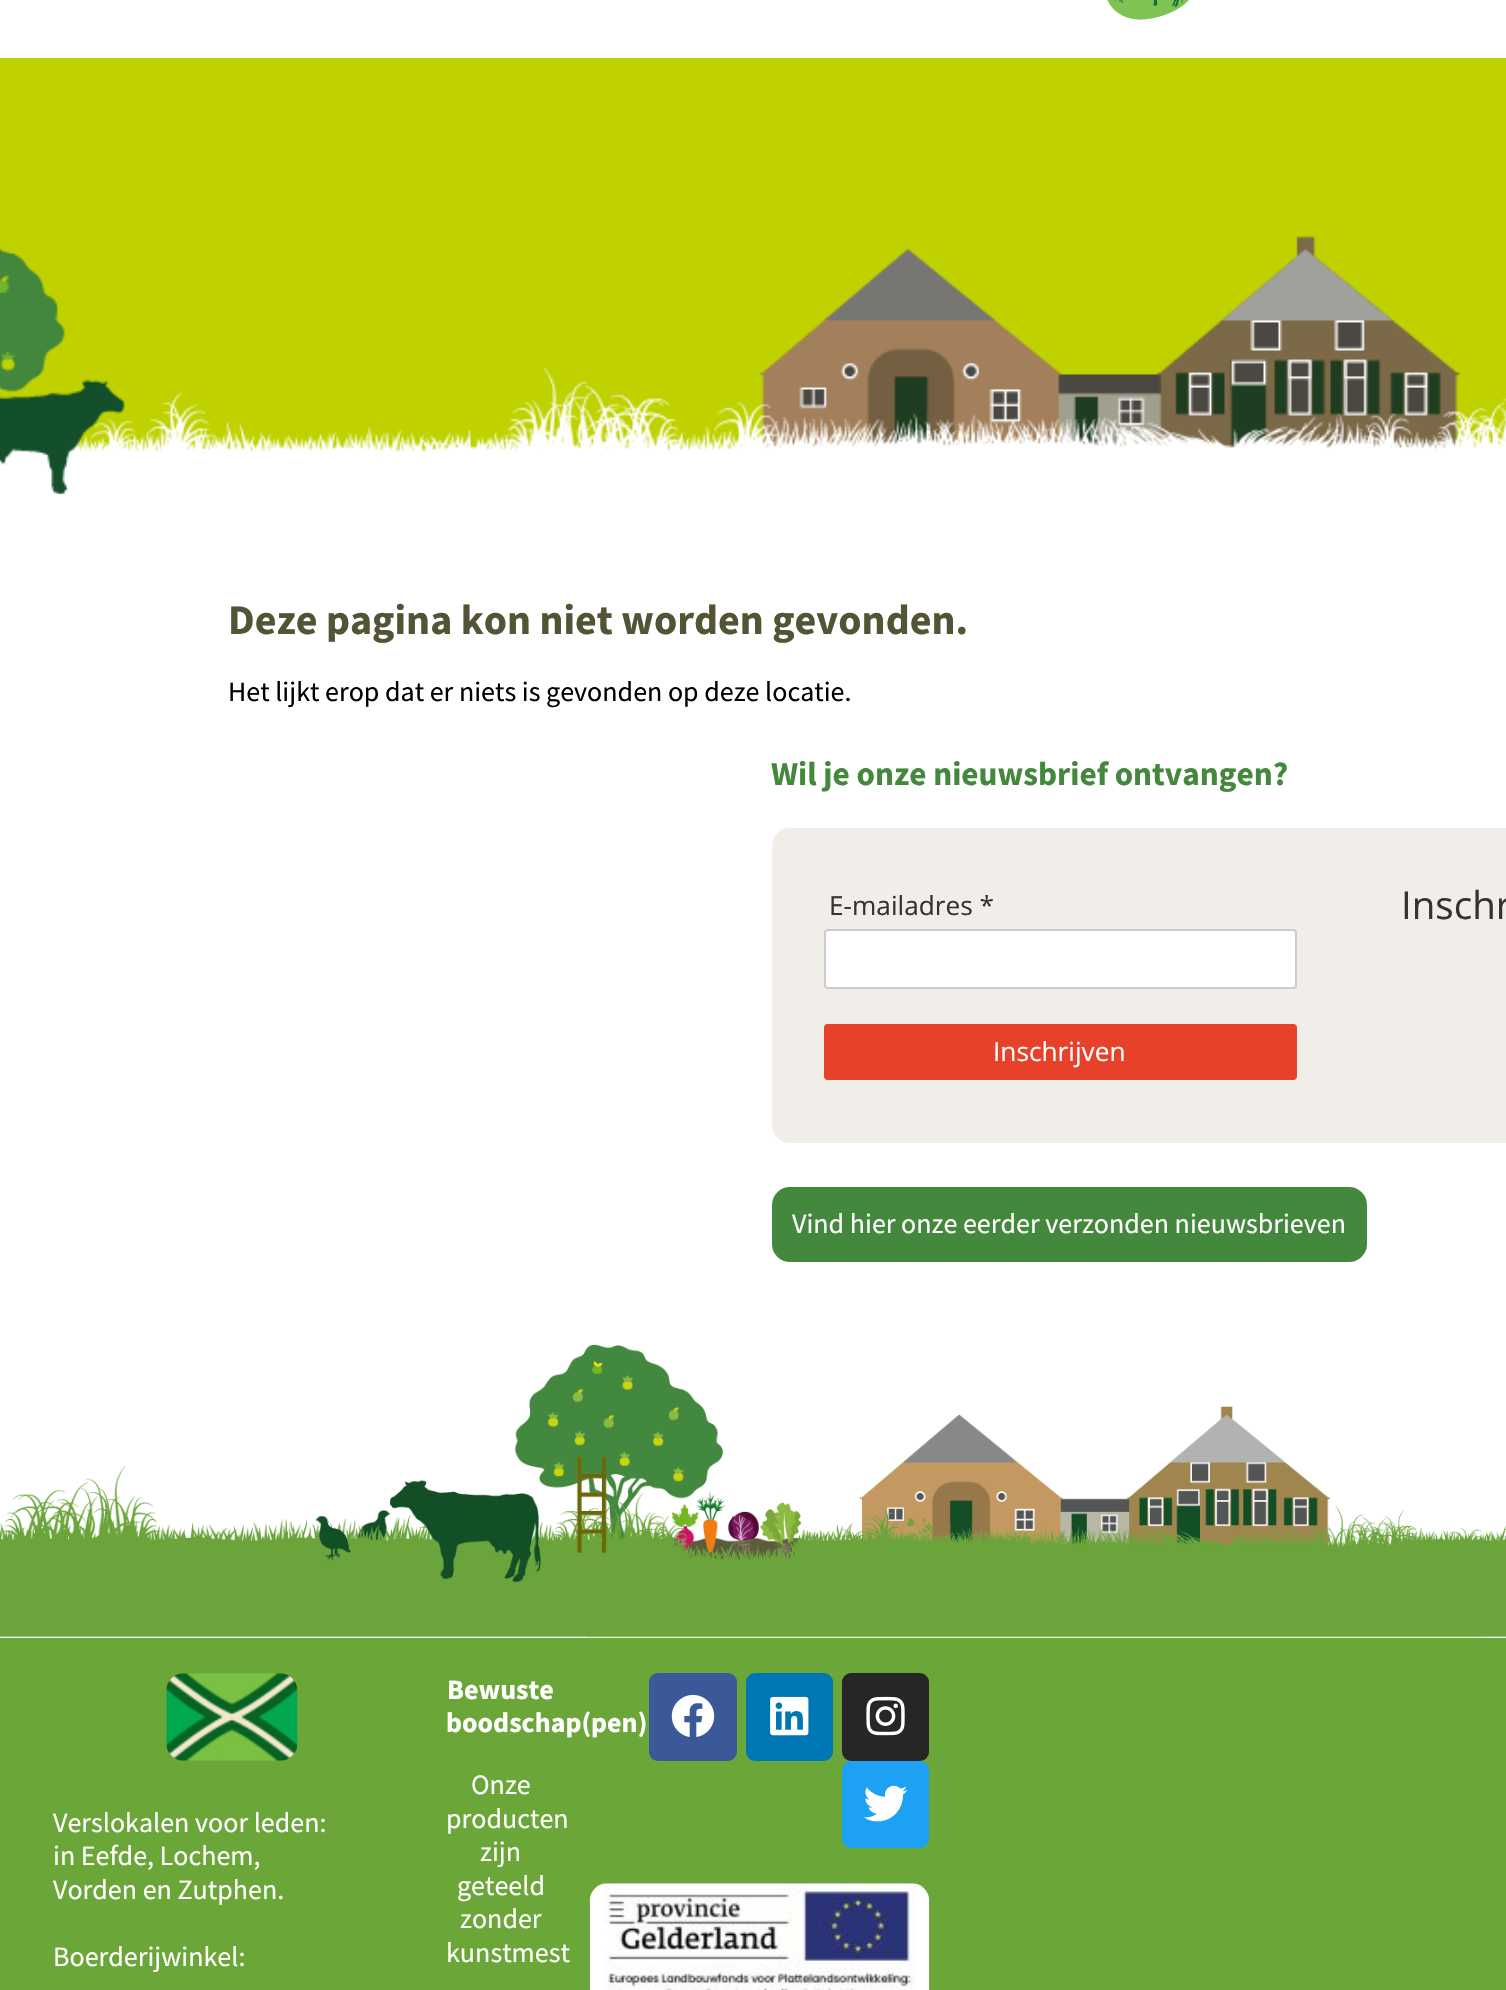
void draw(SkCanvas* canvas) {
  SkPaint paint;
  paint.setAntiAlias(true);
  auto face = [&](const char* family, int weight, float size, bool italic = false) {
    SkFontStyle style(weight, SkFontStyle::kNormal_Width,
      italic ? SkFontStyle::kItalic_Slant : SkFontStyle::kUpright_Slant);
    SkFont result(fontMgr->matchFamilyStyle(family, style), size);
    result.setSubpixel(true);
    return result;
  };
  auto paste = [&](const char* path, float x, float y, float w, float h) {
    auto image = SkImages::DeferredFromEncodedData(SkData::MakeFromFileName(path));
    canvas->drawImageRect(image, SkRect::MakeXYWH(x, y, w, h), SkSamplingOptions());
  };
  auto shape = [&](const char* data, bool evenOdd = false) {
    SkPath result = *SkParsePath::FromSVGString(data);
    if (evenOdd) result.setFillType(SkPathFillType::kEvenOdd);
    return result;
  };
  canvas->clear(0xffffffff);
  paste("img/1.png", 1107, 0, 82, 20);
  paste("img/2.png", 0, 58, 1506, 437);
  paint.setColor(0xfff1eee9);
  canvas->drawPath(shape("M790 828H1349V1143H790C780 1143 772 1135 772 1125V846C772 836 780 828 790 828Z"), paint);
  paint.setColor(0xffffffff);
  canvas->drawRoundRect(SkRect::MakeXYWH(825, 930, 471, 58), 3, 3, paint);
  paint.setStroke(true);
  paint.setStrokeWidth(2);
  paint.setColor(0xffcccccc);
  canvas->drawRoundRect(SkRect::MakeXYWH(825, 930, 471, 58), 3, 3, paint);
  paint.setStroke(false);
  paint.setColor(0xffe8412a);
  canvas->drawRoundRect(SkRect::MakeXYWH(825, 1025, 471, 54), 3, 3, paint);
  paint.setStroke(true);
  canvas->drawRoundRect(SkRect::MakeXYWH(825, 1025, 471, 54), 3, 3, paint);
  paint.setStroke(false);
  paint.setColor(0xfff1eee9);
  canvas->drawRect(SkRect::MakeXYWH(1349, 828, 157, 315), paint);
  paint.setColor(0xff44883e);
  canvas->drawRoundRect(SkRect::MakeXYWH(774, 1189, 591, 71), 16, 16, paint);
  paint.setStroke(true);
  paint.setStrokeWidth(4);
  canvas->drawRoundRect(SkRect::MakeXYWH(774, 1189, 591, 71), 16, 16, paint);
  paste("img/3.png", 0, 1344, 1506, 294);
  paint.setStroke(false);
  paint.setColor(0xff6ba638);
  canvas->drawRect(SkRect::MakeXYWH(0, 1638, 1506, 352), paint);
  paste("img/4.png", 166, 1673, 132, 88);
  paint.setColor(0xff3b5998);
  canvas->drawRoundRect(SkRect::MakeXYWH(649, 1673, 88, 88), 9, 9, paint);
  paste("img/5.png", 671, 1694, 44, 43);
  paint.setColor(0xff0077b5);
  canvas->drawRoundRect(SkRect::MakeXYWH(746, 1673, 87, 88), 9, 9, paint);
  paste("img/6.png", 770, 1696, 39, 40);
  paint.setColor(0xff262626);
  canvas->drawRoundRect(SkRect::MakeXYWH(842, 1673, 87, 88), 9, 9, paint);
  paste("img/7.png", 866, 1696, 39, 40);
  paint.setColor(0xff1da1f2);
  canvas->drawRoundRect(SkRect::MakeXYWH(842, 1761, 87, 87), 9, 9, paint);
  paste("img/8.png", 863, 1785, 45, 37);
  paste("img/9.png", 589, 1883, 341, 107);
  auto f0 = face("Source Sans Pro", 700, 42);
  paint.setColor(0xff535435);
  canvas->drawString("Deze pagina kon niet worden gevonden.", 228, 634, f0, paint);
  auto f1 = face("Source Sans Pro", 400, 28);
  paint.setColor(0xff000000);
  canvas->drawString("Het lijkt erop dat er niets is gevonden op deze locatie.", 228, 701, f1, paint);
  auto f2 = face("Source Sans Pro", 700, 33.25f);
  paint.setColor(0xff44883e);
  canvas->drawString("Wil je onze nieuwsbrief ontvangen?", 771, 785, f2, paint);
  auto f3 = face("Open Sans", 400, 26.25f);
  paint.setColor(0xff333333);
  canvas->drawString("E-mailadres *", 829, 915, f3, paint);
  paint.setColor(0xffffffff);
  canvas->drawString("Inschrijven", 993, 1061, f3, paint);
  auto f4 = face("Open Sans", 400, 38.5f);
  paint.setColor(0xff333333);
  canvas->drawString("Inschr", 1401, 919, f4, paint);
  paint.setColor(0xffffffff);
  {
    const struct { const char* s; float x, y; } items[] = {
      {"Vind hier onze eerder verzonden nieuwsbrieven", 792, 1233},
      {"Verslokalen voor leden:", 53, 1832},
      {"in Eefde, Lochem,", 53, 1865},
      {"Vorden en Zutphen.", 53, 1899},
      {"Boerderijwinkel:", 53, 1966},
    };
    for (auto [s, x, y] : items) {
      canvas->drawString(s, x, y, f1, paint);
    }
  }
  auto f5 = face("Source Sans Pro", 700, 28);
  canvas->drawString("Bewuste", 447, 1699, f5, paint);
  canvas->drawString("boodschap(pen)", 446, 1732, f5, paint);
  {
    const struct { const char* s; float x, y; } items[] = {
      {"Onze", 471, 1794},
      {"producten", 446, 1828},
      {"zijn", 480, 1861},
      {"geteeld", 457, 1895},
      {"zonder", 460, 1928},
      {"kunstmest", 446, 1962},
    };
    for (auto [s, x, y] : items) {
      canvas->drawString(s, x, y, f1, paint);
    }
  }
}
